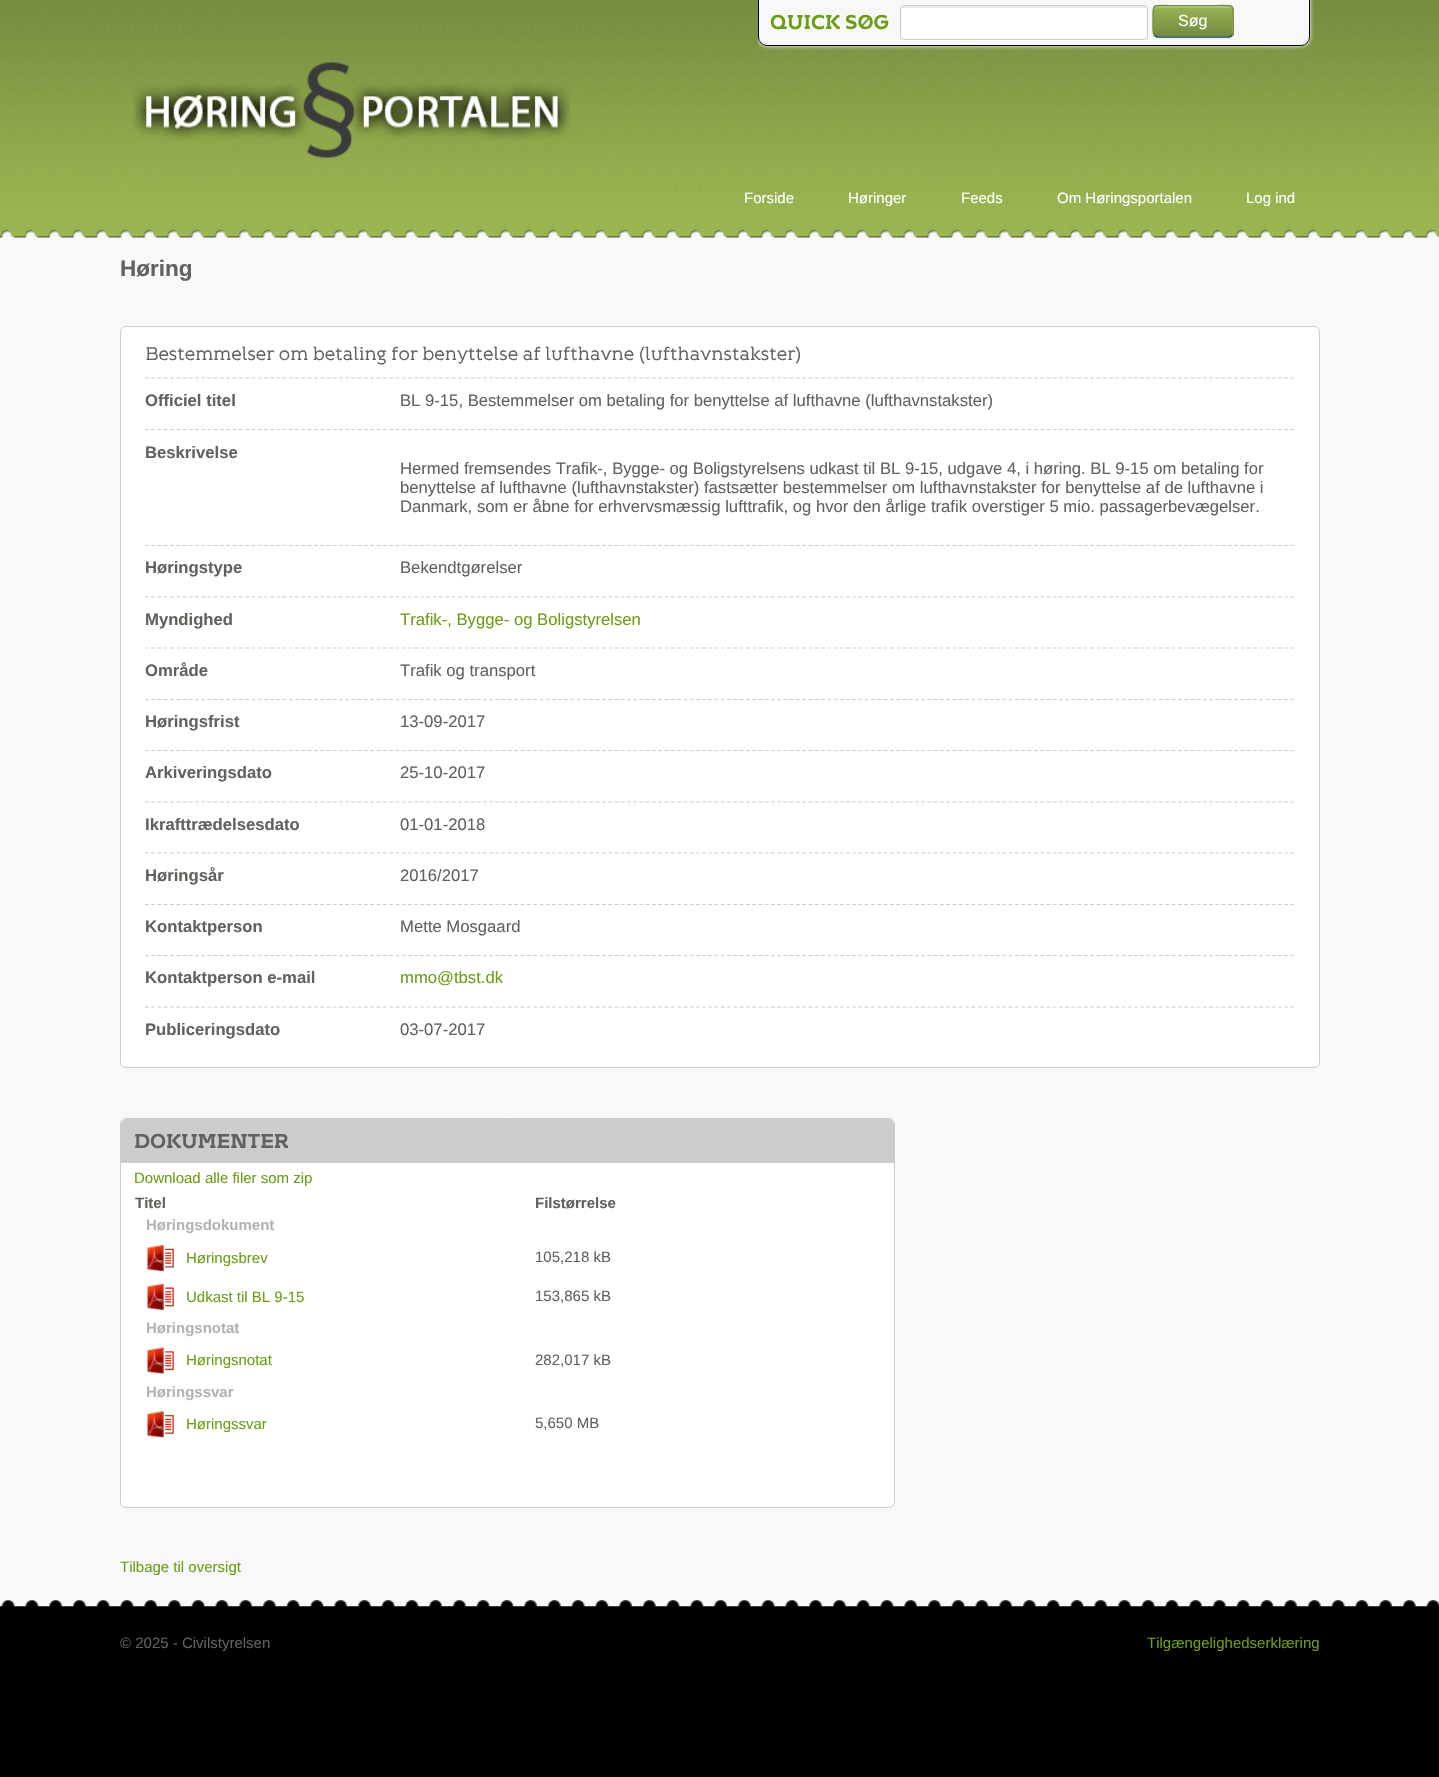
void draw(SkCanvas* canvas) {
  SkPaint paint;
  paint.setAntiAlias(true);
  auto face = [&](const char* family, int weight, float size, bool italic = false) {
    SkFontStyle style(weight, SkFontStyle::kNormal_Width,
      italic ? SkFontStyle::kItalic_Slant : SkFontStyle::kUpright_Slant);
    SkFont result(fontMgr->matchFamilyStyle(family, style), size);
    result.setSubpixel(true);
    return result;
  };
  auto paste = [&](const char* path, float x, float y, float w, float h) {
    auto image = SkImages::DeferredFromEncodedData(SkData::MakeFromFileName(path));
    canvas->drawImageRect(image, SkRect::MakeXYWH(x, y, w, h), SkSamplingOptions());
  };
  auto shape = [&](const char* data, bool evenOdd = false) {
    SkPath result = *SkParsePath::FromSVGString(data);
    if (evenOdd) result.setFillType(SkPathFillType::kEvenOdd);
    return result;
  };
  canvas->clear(0xff000000);
  paint.setColor(0xffffffff);
  canvas->drawRect(SkRect::MakeXYWH(0, 237, 1439, 1), paint);
  paste("img/1.png", 0, 0, 1439, 238);
  canvas->save();
  canvas->clipRect(SkRect::MakeXYWH(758, 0, 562, 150));
  paint.setMaskFilter(SkMaskFilter::MakeBlur(kNormal_SkBlurStyle, 2));
  canvas->drawRoundRect(SkRect::MakeXYWH(758, -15, 552, 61), 9, 9, paint);
  paint.setMaskFilter(nullptr);
  canvas->restore();
  paint.setColor(0xfff8f8f8);
  canvas->drawPath(shape("M758 0H1310V37C1310 42 1306 46 1301 46H767C762 46 758 42 758 37Z"), paint);
  paint.setStroke(true);
  paint.setStrokeWidth(1);
  paint.setColor(0xff000000);
  canvas->drawRoundRect(SkRect::MakeXYWH(758.5f, -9.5f, 551, 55), 8.5f, 8.5f, paint);
  paint.setStroke(false);
  paint.setColor(0xffffffff);
  canvas->drawRoundRect(SkRect::MakeXYWH(900, 5, 248, 35), 4, 4, paint);
  paint.setColor(0xffececec);
  canvas->drawPath(shape("M904 8H1144C1145 8 1146 9 1146 10C1146 8 1146 6 1144 6H903C901 7 901 9 901 10C901 9 902 8 904 8Z"), paint);
  paint.setStroke(true);
  paint.setColor(0xffcccccc);
  canvas->drawRoundRect(SkRect::MakeXYWH(900.5f, 5.5f, 247, 34), 3.5f, 3.5f, paint);
  paint.setStroke(false);
  paint.setColor(0x0d000000);
  paint.setMaskFilter(SkMaskFilter::MakeBlur(kNormal_SkBlurStyle, 1));
  canvas->drawRoundRect(SkRect::MakeXYWH(1153, 6, 81, 33), 5, 5, paint);
  paint.setMaskFilter(nullptr);
  paint.setColor(0xff99b455);
  canvas->drawRoundRect(SkRect::MakeXYWH(1153, 5, 81, 33), 5, 5, paint);
  canvas->save();
  canvas->clipPath(shape("M1158 5H1229C1232 5 1234 7 1234 10V33C1234 36 1232 38 1229 38H1158C1155 38 1153 36 1153 33V10C1153 7 1155 5 1158 5Z"), true);
  {
    const SkColor colors[] = {0xff99b455, 0xff748a3f};
    const float stops[] = {0, 1};
    const SkPoint ends[] = {{1193, 6.2f}, {1193, 36}};
    paint.setShader(SkGradientShader::MakeLinear(ends, colors, stops, 2, SkTileMode::kClamp));
    paint.setAlpha(255);
  }
  canvas->drawRect(SkRect::MakeXYWH(1153, 6, 81, 30), paint);
  canvas->restore();
  paint.setShader(nullptr);
  paint.setColor(0x33ffffff);
  canvas->drawPath(shape("M1158 8H1229C1233 8 1232 12 1232 15V35C1233 34 1233 33 1233 32V10C1233 8 1231 6 1229 6H1158C1156 6 1154 8 1154 10V11C1154 9 1155 8 1158 8Z"), paint);
  paint.setStroke(true);
  paint.setStrokeWidth(1.2f);
  paint.setColor(0xff003580);
  canvas->drawPath(shape("M1232 35.5L1229 37H1157L1154.5 35.5"), paint);
  paint.setColor(0xff748a3f);
  canvas->drawPath(shape("M1154.5 35.5C1152 33 1153 24.5 1153 21C1153 3.5 1151 5.5 1169.5 5.5H1217C1235 5.5 1233 3.5 1233 21C1233 24.5 1234.5 33 1232 35.5"), paint);
  paste("img/2.png", 133, 62, 437, 96);
  paint.setStroke(false);
  paint.setColor(0xfff8f8f8);
  canvas->drawRect(SkRect::MakeXYWH(0, 238, 1439, 1362), paint);
  paint.setColor(0xffffffff);
  canvas->drawRoundRect(SkRect::MakeXYWH(120.5f, 326.5f, 1199, 741), 5.5f, 5.5f, paint);
  paint.setStroke(true);
  paint.setStrokeWidth(1);
  paint.setColor(0xffcccccc);
  canvas->drawRoundRect(SkRect::MakeXYWH(120.5f, 326.5f, 1199, 741), 5.5f, 5.5f, paint);
  paint.setStrokeWidth(1.2f);
  paint.setPathEffect(SkDashPathEffect::Make({{3.75f, 2.51f}}, 0));
  canvas->drawPath(shape("M145 378H1295"), paint);
  paint.setPathEffect(nullptr);
  paint.setPathEffect(SkDashPathEffect::Make({{3.75f, 2.51f}}, 0));
  canvas->drawPath(shape("M145 429.5H1295"), paint);
  paint.setPathEffect(nullptr);
  paint.setPathEffect(SkDashPathEffect::Make({{3.75f, 2.51f}}, 0));
  canvas->drawPath(shape("M145 545.5H1295"), paint);
  paint.setPathEffect(nullptr);
  paint.setPathEffect(SkDashPathEffect::Make({{3.75f, 2.51f}}, 0));
  canvas->drawPath(shape("M145 597H1295"), paint);
  paint.setPathEffect(nullptr);
  paint.setPathEffect(SkDashPathEffect::Make({{3.75f, 2.51f}}, 0));
  canvas->drawPath(shape("M145 648H1295"), paint);
  paint.setPathEffect(nullptr);
  paint.setPathEffect(SkDashPathEffect::Make({{3.75f, 2.51f}}, 0));
  canvas->drawPath(shape("M145 699.5H1295"), paint);
  paint.setPathEffect(nullptr);
  paint.setPathEffect(SkDashPathEffect::Make({{3.75f, 2.51f}}, 0));
  canvas->drawPath(shape("M145 750.5H1295"), paint);
  paint.setPathEffect(nullptr);
  paint.setPathEffect(SkDashPathEffect::Make({{3.75f, 2.51f}}, 0));
  canvas->drawPath(shape("M145 802H1295"), paint);
  paint.setPathEffect(nullptr);
  paint.setPathEffect(SkDashPathEffect::Make({{3.75f, 2.51f}}, 0));
  canvas->drawPath(shape("M145 853H1295"), paint);
  paint.setPathEffect(nullptr);
  paint.setPathEffect(SkDashPathEffect::Make({{3.75f, 2.51f}}, 0));
  canvas->drawPath(shape("M145 904.5H1295"), paint);
  paint.setPathEffect(nullptr);
  paint.setPathEffect(SkDashPathEffect::Make({{3.75f, 2.51f}}, 0));
  canvas->drawPath(shape("M145 955.5H1295"), paint);
  paint.setPathEffect(nullptr);
  paint.setPathEffect(SkDashPathEffect::Make({{3.75f, 2.51f}}, 0));
  canvas->drawPath(shape("M145 1007H1295"), paint);
  paint.setPathEffect(nullptr);
  paint.setStroke(false);
  paint.setColor(0xffffffff);
  canvas->drawRoundRect(SkRect::MakeXYWH(120.5f, 1118.5f, 774, 389), 5.5f, 5.5f, paint);
  paint.setStroke(true);
  paint.setStrokeWidth(1);
  paint.setColor(0xffcccccc);
  canvas->drawRoundRect(SkRect::MakeXYWH(120.5f, 1118.5f, 774, 389), 5.5f, 5.5f, paint);
  paint.setStroke(false);
  canvas->drawPath(shape("M127 1119H888C891.5 1119 894 1121.5 894 1125V1163H121V1125C121 1121.5 123.5 1119 127 1119Z"), paint);
  paste("img/3.png", 147, 1245, 27, 27);
  paste("img/4.png", 147, 1283, 27, 27);
  paste("img/5.png", 147, 1347, 27, 27);
  paste("img/6.png", 147, 1411, 27, 27);
  paste("img/7.png", 0, 1600, 1439, 7);
  auto f0 = face("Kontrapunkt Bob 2", 700, 20);
  paint.setColor(0xff6c9d16);
  canvas->drawString("QUICK SØG", 770, 29, f0, paint);
  auto f1 = face("Liberation Sans", 400, 16);
  paint.setColor(0xffffffff);
  canvas->drawString("Søg", 1178, 26, f1, paint);
  auto f2 = face("Liberation Sans", 400, 15);
  {
    const struct { const char* s; float x, y; } items[] = {
      {"Forside", 744, 203},
      {"Høringer", 848, 203},
      {"Feeds", 961, 203},
      {"Om Høringsportalen", 1057, 203},
      {"Log ind", 1246, 203},
    };
    for (auto [s, x, y] : items) {
      canvas->drawString(s, x, y, f2, paint);
    }
  }
  auto f3 = face("Liberation Sans", 700, 22.5f);
  paint.setColor(0xff61625d);
  canvas->drawString("Høring", 120, 276, f3, paint);
  auto f4 = face("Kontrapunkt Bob", 700, 17.55f);
  canvas->drawString("Bestemmelser om betaling for benyttelse af lufthavne (lufthavnstakster)", 145, 360, f4, paint);
  auto f5 = face("Liberation Sans", 700, 16.67f);
  canvas->drawString("Officiel titel", 145, 406, f5, paint);
  auto f6 = face("Liberation Sans", 400, 16.67f);
  canvas->drawString("BL 9-15, Bestemmelser om betaling for benyttelse af lufthavne (lufthavnstakster)", 400, 406, f6, paint);
  canvas->drawString("Beskrivelse", 145, 458, f5, paint);
  {
    const struct { const char* s; float x, y; } items[] = {
      {"Hermed fremsendes Trafik-, Bygge- og Boligstyrelsens udkast til BL 9-15, udgave 4, i høring. BL 9-15 om betaling for", 400, 474},
      {"benyttelse af lufthavne (lufthavnstakster) fastsætter bestemmelser om lufthavnstakster for benyttelse af de lufthavne i", 400, 493},
      {"Danmark, som er åbne for erhvervsmæssig lufttrafik, og hvor den årlige trafik overstiger 5 mio. passagerbevægelser.", 400, 512},
    };
    for (auto [s, x, y] : items) {
      canvas->drawString(s, x, y, f6, paint);
    }
  }
  canvas->drawString("Høringstype", 145, 573, f5, paint);
  canvas->drawString("Bekendtgørelser", 400, 573, f6, paint);
  canvas->drawString("Myndighed", 145, 625, f5, paint);
  paint.setColor(0xff6c9d16);
  canvas->drawString("Trafik-, Bygge- og Boligstyrelsen", 400, 625, f6, paint);
  paint.setColor(0xff61625d);
  canvas->drawString("Område", 145, 676, f5, paint);
  canvas->drawString("Trafik og transport", 400, 676, f6, paint);
  canvas->drawString("Høringsfrist", 145, 727, f5, paint);
  canvas->drawString("13-09-2017", 400, 727, f6, paint);
  canvas->drawString("Arkiveringsdato", 145, 778, f5, paint);
  canvas->drawString("25-10-2017", 400, 778, f6, paint);
  canvas->drawString("Ikrafttrædelsesdato", 145, 830, f5, paint);
  canvas->drawString("01-01-2018", 400, 830, f6, paint);
  canvas->drawString("Høringsår", 145, 881, f5, paint);
  canvas->drawString("2016/2017", 400, 881, f6, paint);
  canvas->drawString("Kontaktperson", 145, 932, f5, paint);
  canvas->drawString("Mette Mosgaard", 400, 932, f6, paint);
  canvas->drawString("Kontaktperson e-mail", 145, 983, f5, paint);
  paint.setColor(0xff6c9d16);
  canvas->drawString("mmo@tbst.dk", 400, 983, f6, paint);
  paint.setColor(0xff61625d);
  canvas->drawString("Publiceringsdato", 145, 1035, f5, paint);
  canvas->drawString("03-07-2017", 400, 1035, f6, paint);
  canvas->drawString("DOKUMENTER", 134, 1148, f0, paint);
  paint.setColor(0xff6c9d16);
  canvas->drawString("Download alle filer som zip", 134, 1183, f2, paint);
  auto f7 = face("Liberation Sans", 700, 15);
  paint.setColor(0xff61625d);
  canvas->drawString("Titel", 135, 1208, f7, paint);
  canvas->drawString("Filstørrelse", 535, 1208, f7, paint);
  paint.setColor(0xffb3b3b3);
  canvas->drawString("Høringsdokument", 146, 1230, f7, paint);
  paint.setColor(0xff6c9d16);
  canvas->drawString("Høringsbrev", 186, 1263, f2, paint);
  paint.setColor(0xff61625d);
  canvas->drawString("105,218 kB", 535, 1262, f2, paint);
  paint.setColor(0xff6c9d16);
  canvas->drawString("Udkast til BL 9-15", 186, 1302, f2, paint);
  paint.setColor(0xff61625d);
  canvas->drawString("153,865 kB", 535, 1301, f2, paint);
  paint.setColor(0xffb3b3b3);
  canvas->drawString("Høringsnotat", 146, 1333, f7, paint);
  paint.setColor(0xff6c9d16);
  canvas->drawString("Høringsnotat", 186, 1365, f2, paint);
  paint.setColor(0xff61625d);
  canvas->drawString("282,017 kB", 535, 1365, f2, paint);
  paint.setColor(0xffb3b3b3);
  canvas->drawString("Høringssvar", 146, 1397, f7, paint);
  paint.setColor(0xff6c9d16);
  canvas->drawString("Høringssvar", 186, 1429, f2, paint);
  paint.setColor(0xff61625d);
  canvas->drawString("5,650 MB", 535, 1428, f2, paint);
  paint.setColor(0xff6c9d16);
  canvas->drawString("Tilbage til oversigt", 120, 1572, f2, paint);
  paint.setColor(0xff61625d);
  canvas->drawString("© 2025 - Civilstyrelsen", 120, 1648, f2, paint);
  paint.setColor(0xff6c9d16);
  canvas->drawString("Tilgængelighedserklæring", 1147, 1648, f2, paint);
}
